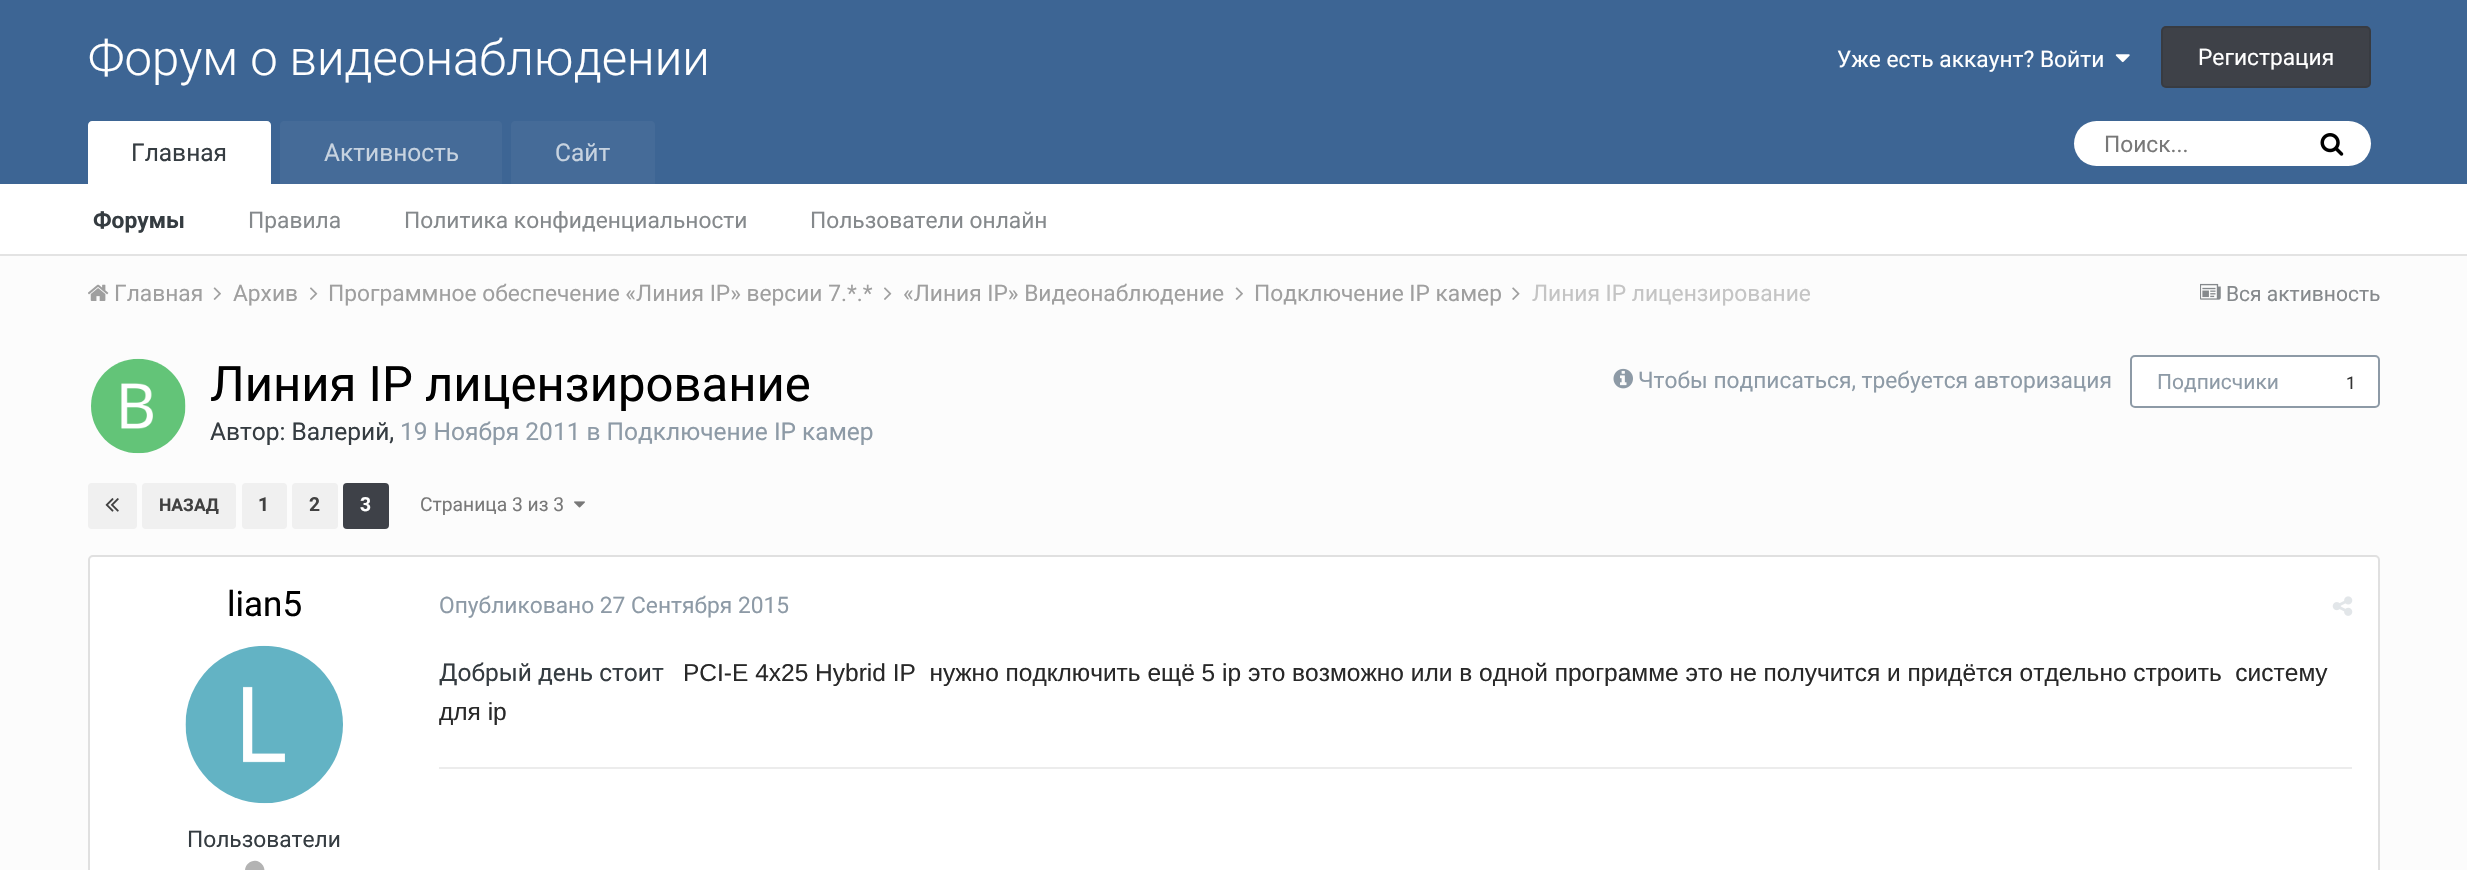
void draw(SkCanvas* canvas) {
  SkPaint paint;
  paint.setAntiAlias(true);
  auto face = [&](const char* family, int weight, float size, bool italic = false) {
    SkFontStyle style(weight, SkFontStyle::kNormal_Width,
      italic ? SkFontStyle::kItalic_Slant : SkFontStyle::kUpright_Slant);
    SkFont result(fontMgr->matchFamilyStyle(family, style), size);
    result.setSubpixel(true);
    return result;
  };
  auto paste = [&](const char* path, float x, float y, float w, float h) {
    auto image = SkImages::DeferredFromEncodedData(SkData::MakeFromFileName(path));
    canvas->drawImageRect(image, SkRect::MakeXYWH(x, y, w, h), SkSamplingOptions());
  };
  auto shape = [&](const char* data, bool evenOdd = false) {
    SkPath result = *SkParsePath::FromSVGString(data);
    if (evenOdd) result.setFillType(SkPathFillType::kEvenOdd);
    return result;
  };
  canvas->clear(0xfffcfcfc);
  paint.setColor(0xffe3e3e3);
  canvas->drawRect(SkRect::MakeXYWH(0, 254, 2467, 2), paint);
  paint.setColor(0xff3d6594);
  canvas->drawRect(SkRect::MakeXYWH(0, 0, 2467, 184), paint);
  paste("img/1.png", 2115, 54, 15, 9);
  paint.setColor(0xff3e4148);
  canvas->drawRoundRect(SkRect::MakeXYWH(2161, 26, 210, 62), 5, 5, paint);
  paint.setStroke(true);
  paint.setStrokeWidth(2);
  paint.setColor(0x1a000000);
  canvas->drawRoundRect(SkRect::MakeXYWH(2162, 27, 208, 60), 4, 4, paint);
  paint.setStroke(false);
  paint.setColor(0xffffffff);
  canvas->drawRect(SkRect::MakeXYWH(0, 184, 2467, 70), paint);
  canvas->drawPath(shape("M92 121H267C269 121 271 123 271 125V184H88V125C88 123 90 121 92 121Z"), paint);
  paint.setColor(0xff456b98);
  canvas->drawPath(shape("M284 121H498C500 121 502 123 502 125V184H280V125C280 123 282 121 284 121Z"), paint);
  canvas->drawPath(shape("M515 121H651C653 121 655 123 655 125V184H511V125C511 123 513 121 515 121Z"), paint);
  paint.setColor(0xffffffff);
  canvas->drawRoundRect(SkRect::MakeXYWH(2074, 121, 297, 45), 22.5f, 22.5f, paint);
  paste("img/2.png", 2320, 133, 24, 23);
  paste("img/3.png", 88, 284, 21, 17);
  paste("img/4.png", 213, 287, 8, 13);
  paste("img/5.png", 310, 287, 8, 13);
  paste("img/5.png", 884, 287, 8, 13);
  paste("img/4.png", 1235, 287, 8, 13);
  paste("img/6.png", 1512, 287, 8, 13);
  paste("img/7.png", 2200, 283, 21, 17);
  canvas->drawRoundRect(SkRect::MakeXYWH(91, 359, 95, 94), 47, 47, paint);
  paste("img/8.png", 91, 358, 95, 96);
  paste("img/9.png", 1613, 368, 20, 21);
  canvas->drawRoundRect(SkRect::MakeXYWH(2131, 356, 248, 51), 4, 4, paint);
  paint.setStroke(true);
  paint.setColor(0xff8d9aa6);
  canvas->drawRoundRect(SkRect::MakeXYWH(2131, 356, 248, 51), 4, 4, paint);
  paint.setStroke(false);
  paint.setColor(0xfff0f0f0);
  canvas->drawRoundRect(SkRect::MakeXYWH(88, 483, 49, 46), 4, 4, paint);
  paste("img/10.png", 105, 498, 14, 14);
  canvas->drawRoundRect(SkRect::MakeXYWH(142, 483, 94, 46), 4, 4, paint);
  canvas->drawRoundRect(SkRect::MakeXYWH(242, 483, 45, 46), 4, 4, paint);
  canvas->drawRoundRect(SkRect::MakeXYWH(292, 483, 46, 46), 4, 4, paint);
  paint.setColor(0xff3e4148);
  canvas->drawRoundRect(SkRect::MakeXYWH(343, 483, 46, 46), 4, 4, paint);
  paste("img/11.png", 574, 501, 11, 7);
  paint.setColor(0xffffffff);
  canvas->drawRoundRect(SkRect::MakeXYWH(89, 556, 2290, 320), 4, 4, paint);
  paint.setStroke(true);
  paint.setColor(0xffe0e0e0);
  canvas->drawRoundRect(SkRect::MakeXYWH(89, 556, 2290, 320), 4, 4, paint);
  paste("img/12.png", 185, 645, 158, 159);
  paint.setStroke(false);
  paint.setColor(0xffb3b3b3);
  canvas->drawPath(shape("M263 865.5C269.5 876.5 253 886.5 246.5 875.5C240 864 256.5 854.5 263 865.5Z"), paint);
  paste("img/13.png", 2332, 596, 21, 20);
  paint.setColor(0xffececec);
  canvas->drawRect(SkRect::MakeXYWH(439, 767, 1913, 2), paint);
  auto f0 = face("Roboto", 300, 49);
  paint.setColor(0xffffffff);
  canvas->drawString("Форум о видеонаблюдении", 88, 75, f0, paint);
  auto f1 = face("Roboto", 400, 22.75f);
  canvas->drawString("Уже есть аккаунт? Войти", 1837, 67, f1, paint);
  canvas->drawString("Регистрация", 2198, 65, f1, paint);
  auto f2 = face("Roboto", 400, 24.5f);
  paint.setColor(0xff353c41);
  canvas->drawString("Главная", 131, 161, f2, paint);
  auto f3 = face("Roboto", 700, 22.75f);
  canvas->drawString("Форумы", 93, 228, f3, paint);
  paint.setColor(0xff85898c);
  {
    const struct { const char* s; float x, y; } items[] = {
      {"Правила", 248, 228},
      {"Политика конфиденциальности", 404, 228},
      {"Пользователи онлайн", 810, 228},
    };
    for (auto [s, x, y] : items) {
      canvas->drawString(s, x, y, f1, paint);
    }
  }
  paint.setColor(0xffc7d3e0);
  canvas->drawString("Активность", 324, 161, f2, paint);
  canvas->drawString("Сайт", 555, 161, f2, paint);
  paint.setColor(0xff787878);
  canvas->drawString("Поиск...", 2104, 152, f1, paint);
  paint.setColor(0xff9f9f9f);
  {
    const struct { const char* s; float x, y; } items[] = {
      {"Главная", 114, 301},
      {"Архив", 233, 301},
      {"Программное обеспечение «Линия IP» версии 7.*.*", 328, 301},
      {"«Линия IP» Видеонаблюдение", 903, 301},
      {"Подключение IP камер", 1254, 301},
    };
    for (auto [s, x, y] : items) {
      canvas->drawString(s, x, y, f1, paint);
    }
  }
  paint.setColor(0xffc4c4c4);
  canvas->drawString("Линия IP лицензирование", 1532, 301, f1, paint);
  auto f4 = face("Roboto", 400, 21);
  paint.setColor(0xff85898c);
  canvas->drawString("Вся активность", 2226, 301, f4, paint);
  auto f5 = face("Roboto", 400, 49);
  paint.setColor(0xff000000);
  canvas->drawString("Линия IP лицензирование", 210, 401, f5, paint);
  paint.setColor(0xff353c41);
  canvas->drawString("Автор: Валерий,", 210, 440, f2, paint);
  paint.setColor(0xff8d9aa6);
  canvas->drawString("19 Ноября 2011 в Подключение IP камер", 400, 440, f2, paint);
  canvas->drawString("Чтобы подписаться, требуется авторизация", 1638, 388, f1, paint);
  canvas->drawString("Подписчики", 2157, 389, f4, paint);
  auto f6 = face("Roboto", 400, 17.5f);
  paint.setColor(0xff333333);
  canvas->drawString("1", 2346, 389, f6, paint);
  auto f7 = face("Roboto", 700, 17.5f);
  paint.setColor(0xff414141);
  canvas->drawString("НАЗАД", 159, 511, f7, paint);
  auto f8 = face("Roboto", 700, 19.25f);
  canvas->drawString("1", 258, 511, f8, paint);
  canvas->drawString("2", 309, 511, f8, paint);
  paint.setColor(0xffffffff);
  canvas->drawString("3", 360, 511, f8, paint);
  auto f9 = face("Roboto", 400, 19.25f);
  paint.setColor(0xff787878);
  canvas->drawString("Страница 3 из 3", 420, 511, f9, paint);
  auto f10 = face("Roboto", 400, 35);
  paint.setColor(0xff000000);
  canvas->drawString("lian5", 227, 616, f10, paint);
  paint.setColor(0xff353c41);
  canvas->drawString("Пользователи", 187, 847, f1, paint);
  paint.setColor(0xff8d9aa6);
  canvas->drawString("Опубликовано 27 Сентября 2015", 439, 613, f1, paint);
  paint.setColor(0xff353c41);
  canvas->drawString("Добрый день стоит", 439, 681, f2, paint);
  auto f11 = face("Liberation Sans", 400, 24.5f);
  paint.setColor(0xff282828);
  canvas->drawString("PCI-E 4x25 Hybrid IP  нужно подключить ещё 5 ip это возможно или в одной программе это не получится и придётся отдельно строить  систему", 683, 681, f11, paint);
  canvas->drawString("для ip", 439, 720, f11, paint);
}
